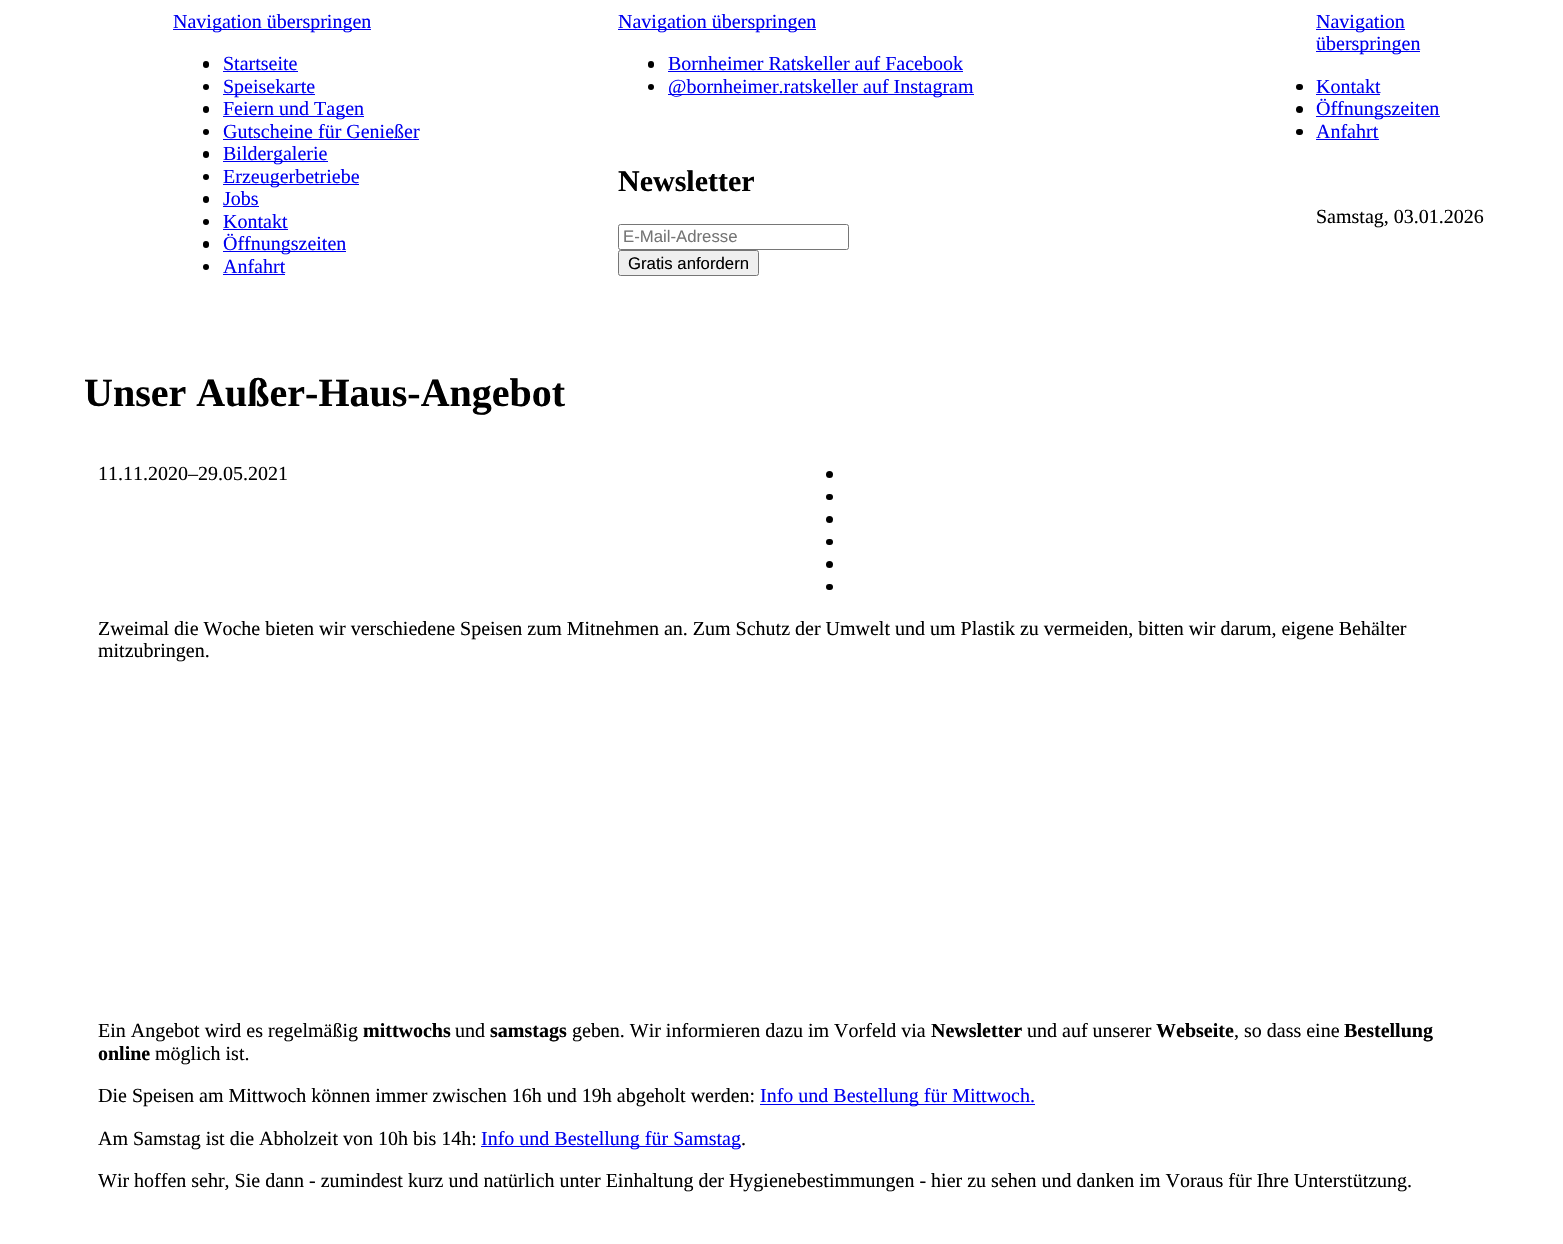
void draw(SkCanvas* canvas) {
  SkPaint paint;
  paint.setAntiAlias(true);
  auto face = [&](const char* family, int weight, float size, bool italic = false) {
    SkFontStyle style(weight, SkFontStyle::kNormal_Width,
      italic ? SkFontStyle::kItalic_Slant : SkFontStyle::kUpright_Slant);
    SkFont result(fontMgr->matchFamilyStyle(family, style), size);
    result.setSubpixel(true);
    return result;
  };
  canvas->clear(0xffffffff);
  paint.setColor(0xff0000ee);
  canvas->drawRect(SkRect::MakeXYWH(173, 29, 198, 1), paint);
  paint.setColor(0xff000000);
  canvas->drawRoundRect(SkRect::MakeXYWH(203, 61, 6, 7), 3, 3, paint);
  paint.setColor(0xff0000ee);
  canvas->drawRect(SkRect::MakeXYWH(223, 71, 75, 1), paint);
  paint.setColor(0xff000000);
  canvas->drawCircle(206, 87, 3, paint);
  paint.setColor(0xff0000ee);
  canvas->drawRect(SkRect::MakeXYWH(223, 94, 92, 1), paint);
  paint.setColor(0xff000000);
  canvas->drawRoundRect(SkRect::MakeXYWH(203, 106, 6, 7), 3, 3, paint);
  paint.setColor(0xff0000ee);
  canvas->drawRect(SkRect::MakeXYWH(223, 116, 141, 1), paint);
  paint.setColor(0xff000000);
  canvas->drawCircle(206, 132, 3, paint);
  paint.setColor(0xff0000ee);
  canvas->drawRect(SkRect::MakeXYWH(223, 139, 196, 1), paint);
  paint.setColor(0xff000000);
  canvas->drawRoundRect(SkRect::MakeXYWH(203, 151, 6, 7), 3, 3, paint);
  paint.setColor(0xff0000ee);
  canvas->drawRect(SkRect::MakeXYWH(223, 161, 105, 1), paint);
  paint.setColor(0xff000000);
  canvas->drawCircle(206, 177, 3, paint);
  paint.setColor(0xff0000ee);
  canvas->drawRect(SkRect::MakeXYWH(223, 184, 136, 1), paint);
  paint.setColor(0xff000000);
  canvas->drawRoundRect(SkRect::MakeXYWH(203, 196, 6, 7), 3, 3, paint);
  paint.setColor(0xff0000ee);
  canvas->drawRect(SkRect::MakeXYWH(223, 206, 36, 1), paint);
  paint.setColor(0xff000000);
  canvas->drawCircle(206, 222, 3, paint);
  paint.setColor(0xff0000ee);
  canvas->drawRect(SkRect::MakeXYWH(223, 229, 65, 1), paint);
  paint.setColor(0xff000000);
  canvas->drawRoundRect(SkRect::MakeXYWH(203, 241, 6, 7), 3, 3, paint);
  paint.setColor(0xff0000ee);
  canvas->drawRect(SkRect::MakeXYWH(223, 251, 123, 1), paint);
  paint.setColor(0xff000000);
  canvas->drawCircle(206, 267, 3, paint);
  paint.setColor(0xff0000ee);
  canvas->drawRect(SkRect::MakeXYWH(223, 274, 62, 1), paint);
  canvas->drawRect(SkRect::MakeXYWH(618, 29, 198, 1), paint);
  paint.setColor(0xff000000);
  canvas->drawRoundRect(SkRect::MakeXYWH(648, 61, 6, 7), 3, 3, paint);
  paint.setColor(0xff0000ee);
  canvas->drawRect(SkRect::MakeXYWH(668, 71, 295, 1), paint);
  paint.setColor(0xff000000);
  canvas->drawCircle(651, 87, 3, paint);
  paint.setColor(0xff0000ee);
  canvas->drawRect(SkRect::MakeXYWH(668, 94, 306, 1), paint);
  paint.setStroke(true);
  paint.setStrokeWidth(1);
  paint.setColor(0xff767676);
  canvas->drawRoundRect(SkRect::MakeXYWH(618.5f, 224.5f, 230, 25), 2, 2, paint);
  paint.setStroke(false);
  paint.setColor(0xffefefef);
  canvas->drawRoundRect(SkRect::MakeXYWH(618.5f, 250.5f, 140, 25), 2, 2, paint);
  paint.setStroke(true);
  paint.setColor(0xff767676);
  canvas->drawRoundRect(SkRect::MakeXYWH(618.5f, 250.5f, 140, 25), 2, 2, paint);
  paint.setStroke(false);
  paint.setColor(0xff0000ee);
  canvas->drawRect(SkRect::MakeXYWH(1316, 29, 89, 1), paint);
  canvas->drawRect(SkRect::MakeXYWH(1316, 51, 104, 1), paint);
  paint.setColor(0xff000000);
  canvas->drawRoundRect(SkRect::MakeXYWH(1296, 84, 7, 6), 3, 3, paint);
  paint.setColor(0xff0000ee);
  canvas->drawRect(SkRect::MakeXYWH(1316, 94, 64, 1), paint);
  paint.setColor(0xff000000);
  canvas->drawCircle(1299.5f, 109.5f, 3.5f, paint);
  paint.setColor(0xff0000ee);
  canvas->drawRect(SkRect::MakeXYWH(1316, 116, 124, 1), paint);
  paint.setColor(0xff000000);
  canvas->drawRoundRect(SkRect::MakeXYWH(1296, 129, 7, 6), 3, 3, paint);
  paint.setColor(0xff0000ee);
  canvas->drawRect(SkRect::MakeXYWH(1316, 139, 63, 1), paint);
  paint.setColor(0xff000000);
  canvas->drawCircle(829.5f, 474.5f, 3.5f, paint);
  canvas->drawRoundRect(SkRect::MakeXYWH(826, 494, 7, 6), 3, 3, paint);
  canvas->drawCircle(829.5f, 519.5f, 3.5f, paint);
  canvas->drawRoundRect(SkRect::MakeXYWH(826, 539, 7, 6), 3, 3, paint);
  canvas->drawCircle(829.5f, 564.5f, 3.5f, paint);
  canvas->drawRoundRect(SkRect::MakeXYWH(826, 584, 7, 6), 3, 3, paint);
  paint.setColor(0xff0000ee);
  canvas->drawRect(SkRect::MakeXYWH(760, 1104, 275, 1), paint);
  canvas->drawRect(SkRect::MakeXYWH(481, 1146, 260, 1), paint);
  auto f0 = face("Liberation Serif", 400, 20);
  {
    const struct { const char* s; float x, y; } items[] = {
      {"Navigation überspringen", 173, 28},
      {"Startseite", 223, 70},
      {"Speisekarte", 223, 93},
      {"Feiern und Tagen", 223, 115},
      {"Gutscheine für Genießer", 223, 138},
      {"Bildergalerie", 223, 160},
      {"Erzeugerbetriebe", 223, 183},
      {"Jobs", 223, 205},
      {"Kontakt", 223, 228},
      {"Öffnungszeiten", 223, 250},
      {"Anfahrt", 223, 273},
      {"Navigation überspringen", 618, 28},
      {"Bornheimer Ratskeller auf Facebook", 668, 70},
      {"@bornheimer.ratskeller auf Instagram", 668, 93},
    };
    for (auto [s, x, y] : items) {
      canvas->drawString(s, x, y, f0, paint);
    }
  }
  auto f1 = face("Liberation Serif", 700, 30);
  paint.setColor(0xff000000);
  canvas->drawString("Newsletter", 618, 191, f1, paint);
  auto f2 = face("Liberation Sans", 400, 16.75f);
  paint.setColor(0xff757575);
  canvas->drawString("E-Mail-Adresse", 623, 242, f2, paint);
  paint.setColor(0xff000000);
  canvas->drawString("Gratis anfordern", 628, 269, f2, paint);
  paint.setColor(0xff0000ee);
  {
    const struct { const char* s; float x, y; } items[] = {
      {"Navigation", 1316, 28},
      {"überspringen", 1316, 50},
      {"Kontakt", 1316, 93},
      {"Öffnungszeiten", 1316, 115},
      {"Anfahrt", 1316, 138},
    };
    for (auto [s, x, y] : items) {
      canvas->drawString(s, x, y, f0, paint);
    }
  }
  paint.setColor(0xff000000);
  canvas->drawString("Samstag, 03.01.2026", 1316, 223, f0, paint);
  auto f3 = face("Liberation Serif", 700, 40);
  canvas->drawString("Unser Außer-Haus-Angebot", 84, 406, f3, paint);
  {
    const struct { const char* s; float x, y; } items[] = {
      {"11.11.2020–29.05.2021", 98, 480},
      {"Zweimal die Woche bieten wir verschiedene Speisen zum Mitnehmen an. Zum Schutz der Umwelt und um Plastik zu vermeiden, bitten wir darum, eigene Behälter", 98, 635},
      {"mitzubringen.", 98, 657},
      {"Ein Angebot wird es regelmäßig", 98, 1037},
    };
    for (auto [s, x, y] : items) {
      canvas->drawString(s, x, y, f0, paint);
    }
  }
  auto f4 = face("Liberation Serif", 700, 20);
  canvas->drawString("mittwochs", 363, 1037, f4, paint);
  canvas->drawString("und", 455, 1037, f0, paint);
  canvas->drawString("samstags", 490, 1037, f4, paint);
  canvas->drawString("geben. Wir informieren dazu im Vorfeld via", 572, 1037, f0, paint);
  canvas->drawString("Newsletter", 931, 1037, f4, paint);
  canvas->drawString("und auf unserer", 1027, 1037, f0, paint);
  canvas->drawString("Webseite", 1156, 1037, f4, paint);
  canvas->drawString(", so dass eine", 1234, 1037, f0, paint);
  canvas->drawString("Bestellung", 1344, 1037, f4, paint);
  canvas->drawString("online", 98, 1060, f4, paint);
  canvas->drawString("möglich ist.", 155, 1060, f0, paint);
  canvas->drawString("Die Speisen am Mittwoch können immer zwischen 16h und 19h abgeholt werden:", 98, 1102, f0, paint);
  paint.setColor(0xff0000ee);
  canvas->drawString("Info und Bestellung für Mittwoch.", 760, 1102, f0, paint);
  paint.setColor(0xff000000);
  canvas->drawString("Am Samstag ist die Abholzeit von 10h bis 14h:", 98, 1145, f0, paint);
  paint.setColor(0xff0000ee);
  canvas->drawString("Info und Bestellung für Samstag", 481, 1145, f0, paint);
  paint.setColor(0xff000000);
  canvas->drawString(".", 741, 1145, f0, paint);
  canvas->drawString("Wir hoffen sehr, Sie dann - zumindest kurz und natürlich unter Einhaltung der Hygienebestimmungen - hier zu sehen und danken im Voraus für Ihre Unterstützung.", 98, 1187, f0, paint);
}
